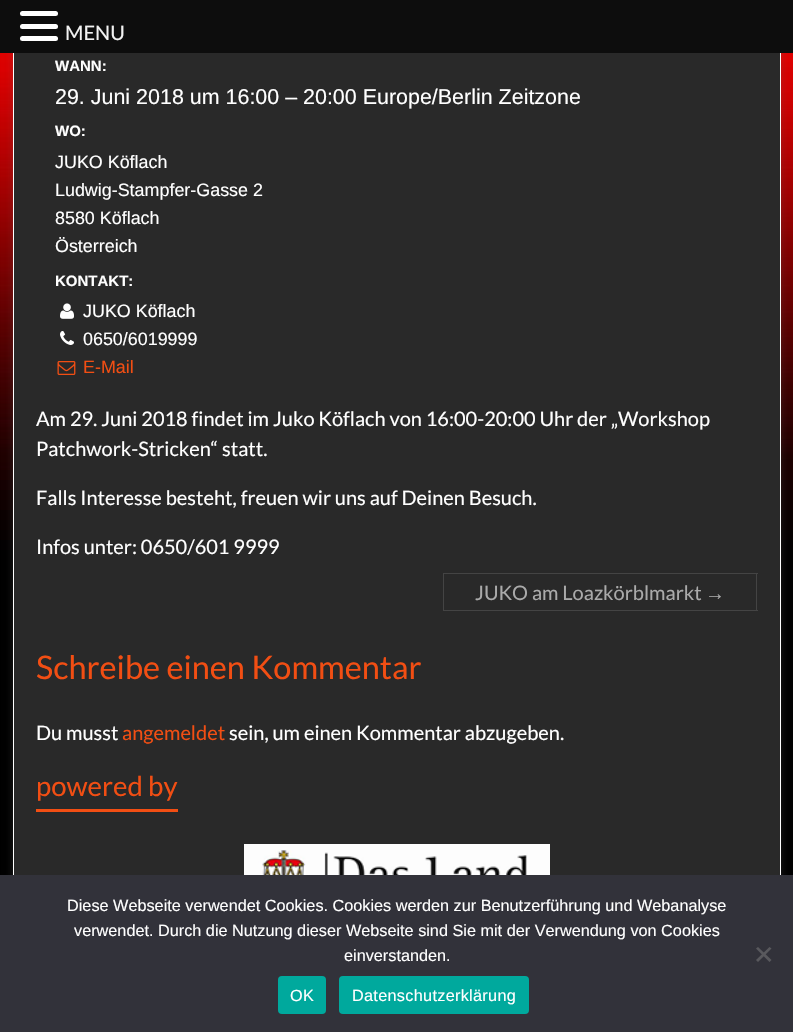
void draw(SkCanvas* canvas) {
  SkPaint paint;
  paint.setAntiAlias(true);
  auto face = [&](const char* family, int weight, float size, bool italic = false) {
    SkFontStyle style(weight, SkFontStyle::kNormal_Width,
      italic ? SkFontStyle::kItalic_Slant : SkFontStyle::kUpright_Slant);
    SkFont result(fontMgr->matchFamilyStyle(family, style), size);
    result.setSubpixel(true);
    return result;
  };
  auto writeSpaced = [&](const char* s, float x, float y, const SkFont& font, const SkPaint& ink, float letter, float word) {
    std::vector<SkGlyphID> glyphs(font.countText(s, strlen(s), SkTextEncoding::kUTF8));
    std::vector<float> xs(glyphs.size());
    font.textToGlyphs(s, strlen(s), SkTextEncoding::kUTF8, glyphs);
    font.getXPos(glyphs, xs, x);
    float extra = 0;
    for (size_t i = 0; i < glyphs.size(); i++) {
      xs[i] += extra;
      extra += letter + word * (glyphs[i] == font.unicharToGlyph(' '));
    }
    canvas->drawTextBlob(SkTextBlob::MakeFromPosHGlyphs(glyphs, xs, y, font), 0, 0, ink);
  };
  auto paste = [&](const char* path, float x, float y, float w, float h) {
    auto image = SkImages::DeferredFromEncodedData(SkData::MakeFromFileName(path));
    canvas->drawImageRect(image, SkRect::MakeXYWH(x, y, w, h), SkSamplingOptions());
  };
  auto shape = [&](const char* data, bool evenOdd = false) {
    SkPath result = *SkParsePath::FromSVGString(data);
    if (evenOdd) result.setFillType(SkPathFillType::kEvenOdd);
    return result;
  };
  canvas->clear(0xffffffff);
  paste("img/1.png", 0, 53, 793, 822);
  paint.setColor(0x4d646464);
  paint.setMaskFilter(SkMaskFilter::MakeBlur(kNormal_SkBlurStyle, 4));
  canvas->drawRect(SkRect::MakeXYWH(13, -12, 768, 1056), paint);
  paint.setMaskFilter(nullptr);
  paint.setColor(0xff292929);
  canvas->drawRect(SkRect::MakeXYWH(14, 53, 766, 822), paint);
  paint.setStroke(true);
  paint.setStrokeWidth(1);
  paint.setColor(0xffffffff);
  canvas->drawRect(SkRect::MakeXYWH(13.5f, -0.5f, 767, 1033), paint);
  paint.setStroke(false);
  paint.setColor(0xff0d0d0d);
  canvas->drawRect(SkRect::MakeXYWH(0, 0, 793, 53), paint);
  paint.setColor(0xffffffff);
  canvas->drawRoundRect(SkRect::MakeXYWH(20, 11, 38, 5), 2.5f, 2.5f, paint);
  canvas->drawRoundRect(SkRect::MakeXYWH(20, 24, 38, 5), 2.5f, 2.5f, paint);
  canvas->drawRoundRect(SkRect::MakeXYWH(20, 36, 38, 5), 2.5f, 2.5f, paint);
  paste("img/2.png", 60, 303, 14, 16);
  paste("img/3.png", 60, 331, 14, 14);
  paste("img/4.png", 57, 361, 19, 14);
  {
    const struct { float x, y, w, h; SkColor color; } items[] = {
      {443, 573, 315, 1, 0xff444444},
      {443, 610, 262, 1, 0xff444444},
      {443, 573, 1, 38, 0xff444444},
      {756, 573, 1, 38, 0xff444444},
      {705, 610, 53, 1, 0xff444444},
      {36, 809, 142, 3, 0xfff24e13},
    };
    for (auto [x, y, w, h, color] : items) {
      paint.setColor(color);
      canvas->drawRect(SkRect::MakeXYWH(x, y, w, h), paint);
    }
  }
  paste("img/5.png", 244, 844, 306, 31);
  paint.setColor(0xff32323a);
  canvas->drawRect(SkRect::MakeXYWH(0, 875, 793, 157), paint);
  paint.setColor(0xff59595d);
  canvas->drawPath(shape("M769.5 947L771.5 948.5L758 962L756 960Z"), paint);
  canvas->drawPath(shape("M756 948.5L758 947L771.5 960L769.5 962Z"), paint);
  paint.setColor(0xff00a99d);
  canvas->drawRoundRect(SkRect::MakeXYWH(278, 976, 48, 38), 4, 4, paint);
  canvas->drawRoundRect(SkRect::MakeXYWH(339, 976, 190, 38), 4, 4, paint);
  auto f0 = face("Lato", 400, 20);
  paint.setColor(0xfff2f2f2);
  canvas->drawString("MENU", 65, 40, f0, paint);
  auto f1 = face("Liberation Sans", 700, 15);
  paint.setColor(0xffffffff);
  canvas->drawString("WANN:", 55, 71, f1, paint);
  auto f2 = face("Liberation Sans", 400, 21.45f);
  canvas->drawString("29. Juni 2018 um 16:00 – 20:00 Europe/Berlin Zeitzone", 55, 104, f2, paint);
  canvas->drawString("WO:", 55, 136, f1, paint);
  auto f3 = face("Liberation Sans", 400, 17.9f);
  {
    const struct { const char* s; float x, y; } items[] = {
      {"JUKO Köflach", 55, 168},
      {"Ludwig-Stampfer-Gasse 2", 55, 196},
      {"8580 Köflach", 55, 224},
      {"Österreich", 55, 252},
    };
    for (auto [s, x, y] : items) {
      canvas->drawString(s, x, y, f3, paint);
    }
  }
  canvas->drawString("KONTAKT:", 55, 286, f1, paint);
  canvas->drawString("JUKO Köflach", 83, 317, f3, paint);
  canvas->drawString("0650/6019999", 83, 345, f3, paint);
  paint.setColor(0xfff24e13);
  canvas->drawString("E-Mail", 83, 373, f3, paint);
  paint.setColor(0xffffffff);
  {
    const struct { const char* s; float x, y; } items[] = {
      {"Am 29. Juni 2018 findet im Juko Köflach von 16:00-20:00 Uhr der „Workshop", 36, 426},
      {"Patchwork-Stricken“ statt.", 36, 456},
      {"Falls Interesse besteht, freuen wir uns auf Deinen Besuch.", 36, 505},
      {"Infos unter: 0650/601 9999", 36, 554},
    };
    for (auto [s, x, y] : items) {
      canvas->drawString(s, x, y, f0, paint);
    }
  }
  paint.setColor(0xffaaaaaa);
  canvas->drawString("JUKO am Loazkörblmarkt", 475, 600, f0, paint);
  auto f4 = face("Liberation Sans", 400, 20);
  canvas->drawString("→", 705, 600, f4, paint);
  auto f5 = face("Lato", 400, 32.5f);
  paint.setColor(0xfff24e13);
  canvas->drawString("Schreibe einen Kommentar", 36, 679, f5, paint);
  paint.setColor(0xffffffff);
  canvas->drawString("Du musst", 36, 740, f0, paint);
  paint.setColor(0xfff24e13);
  canvas->drawString("angemeldet", 122, 740, f0, paint);
  paint.setColor(0xffffffff);
  canvas->drawString("sein, um einen Kommentar abzugeben.", 229, 740, f0, paint);
  auto f6 = face("Lato", 400, 27.5f);
  paint.setColor(0xfff24e13);
  canvas->drawString("powered by", 36, 796, f6, paint);
  auto f7 = face("Liberation Sans", 400, 16.25f);
  paint.setColor(0xffffffff);
  {
    const struct { const char* s; float x, y; } items[] = {
      {"Diese Webseite verwendet Cookies. Cookies werden zur Benutzerführung und Webanalyse", 67, 911},
      {"verwendet. Durch die Nutzung dieser Webseite sind Sie mit der Verwendung von Cookies", 74, 936},
      {"einverstanden.", 344, 961},
    };
    for (auto [s, x, y] : items) {
      canvas->drawString(s, x, y, f7, paint);
    }
  }
  writeSpaced("OK", 290, 1001, f7, paint, 0.3f, 0);
  writeSpaced("Datenschutzerklärung", 352, 1001, f7, paint, 0.3f, 0);
}
